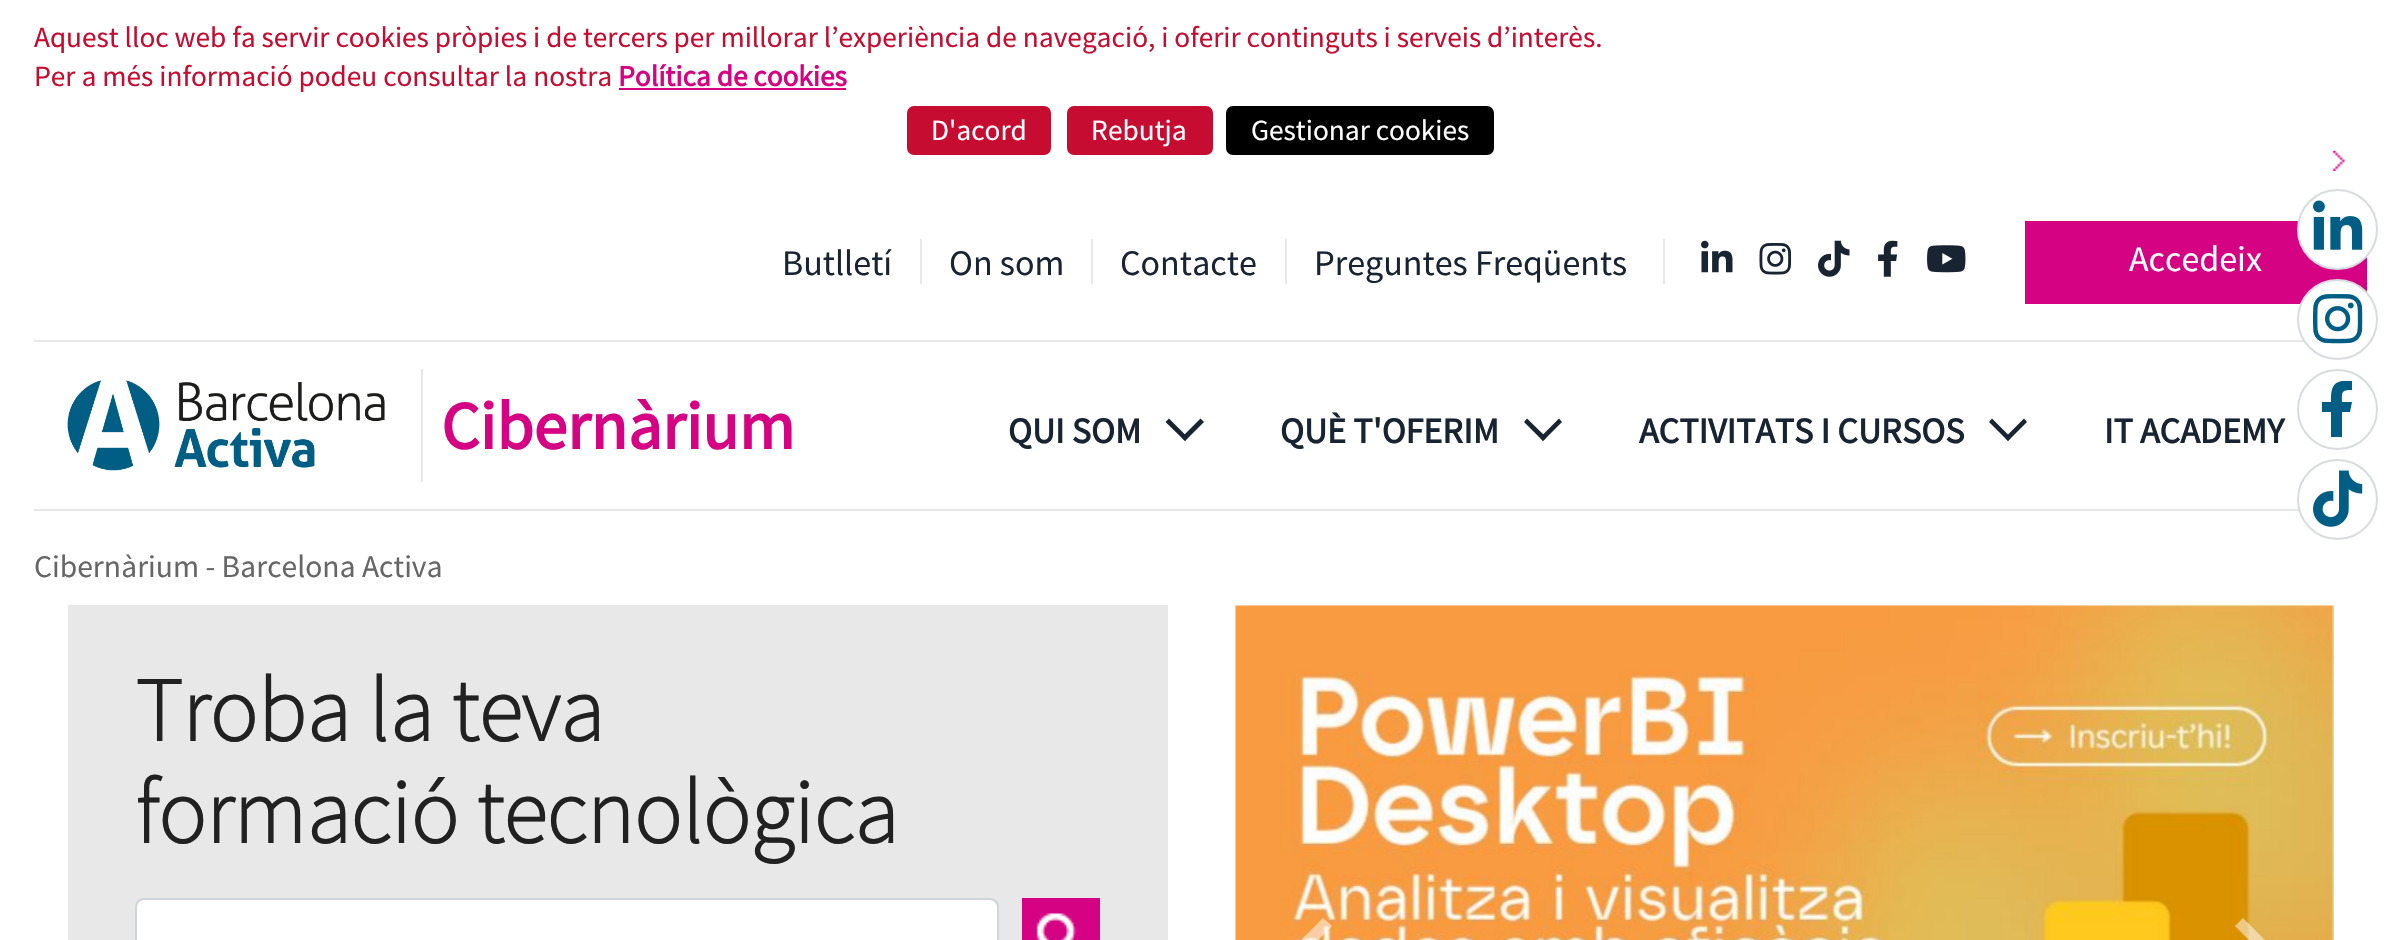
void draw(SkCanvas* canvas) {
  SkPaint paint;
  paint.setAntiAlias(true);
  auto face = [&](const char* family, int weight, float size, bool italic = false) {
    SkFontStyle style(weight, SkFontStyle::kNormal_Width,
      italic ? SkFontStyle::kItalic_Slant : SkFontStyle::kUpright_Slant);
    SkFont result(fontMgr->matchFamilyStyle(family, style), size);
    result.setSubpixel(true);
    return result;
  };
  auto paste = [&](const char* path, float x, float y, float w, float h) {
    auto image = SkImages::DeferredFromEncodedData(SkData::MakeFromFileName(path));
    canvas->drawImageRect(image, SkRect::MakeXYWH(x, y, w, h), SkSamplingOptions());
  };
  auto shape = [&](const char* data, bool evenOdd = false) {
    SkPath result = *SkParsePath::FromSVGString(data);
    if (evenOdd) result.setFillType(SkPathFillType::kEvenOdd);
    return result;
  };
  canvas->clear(0xffffffff);
  paint.setColor(0xffd70083);
  canvas->drawRect(SkRect::MakeXYWH(619, 88, 227, 2), paint);
  paint.setColor(0xffc60c30);
  canvas->drawRoundRect(SkRect::MakeXYWH(908, 107, 142, 47), 6, 6, paint);
  paint.setStroke(true);
  paint.setStrokeWidth(2);
  canvas->drawRoundRect(SkRect::MakeXYWH(908, 107, 142, 47), 6, 6, paint);
  paint.setStroke(false);
  canvas->drawRoundRect(SkRect::MakeXYWH(1068, 107, 144, 47), 6, 6, paint);
  paint.setStroke(true);
  canvas->drawRoundRect(SkRect::MakeXYWH(1068, 107, 144, 47), 6, 6, paint);
  paint.setStroke(false);
  paint.setColor(0xff000000);
  canvas->drawRoundRect(SkRect::MakeXYWH(1227, 107, 266, 47), 6, 6, paint);
  paint.setStroke(true);
  canvas->drawRoundRect(SkRect::MakeXYWH(1227, 107, 266, 47), 6, 6, paint);
  paint.setStroke(false);
  {
    const struct { float x, y, w, h; SkColor color; } items[] = {
      {1663, 239, 2, 45, 0xffe8e8e8},
      {920, 239, 2, 45, 0xffe8e8e8},
      {1091, 239, 2, 45, 0xffe8e8e8},
      {1285, 239, 2, 45, 0xffe8e8e8},
    };
    for (auto [x, y, w, h, color] : items) {
      paint.setColor(color);
      canvas->drawRect(SkRect::MakeXYWH(x, y, w, h), paint);
    }
  }
  paste("img/1.png", 1701, 240, 32, 33);
  paste("img/2.png", 1759, 243, 32, 32);
  paste("img/3.png", 1818, 240, 32, 37);
  paste("img/4.png", 1878, 240, 20, 37);
  paste("img/5.png", 1927, 245, 39, 28);
  {
    const struct { float x, y, w, h; SkColor color; } items[] = {
      {2025, 221, 342, 83, 0xffd50283},
      {34, 340, 2270, 2, 0xffe8e8e8},
      {34, 509, 2265, 2, 0xffe8e8e8},
    };
    for (auto [x, y, w, h, color] : items) {
      paint.setColor(color);
      canvas->drawRect(SkRect::MakeXYWH(x, y, w, h), paint);
    }
  }
  paste("img/6.png", 67, 380, 318, 91);
  canvas->drawRect(SkRect::MakeXYWH(421, 369, 2, 113), paint);
  paint.setColor(0xff192432);
  canvas->drawPath(shape("M1200.5 418.5L1204 422L1185 441L1181.5 437.5Z"), paint);
  canvas->drawPath(shape("M1169 418.5L1188 437.5L1185 441L1165.5 422Z"), paint);
  canvas->drawPath(shape("M1559 418.5L1562 422L1543 441L1540 437.5Z"), paint);
  canvas->drawPath(shape("M1527 418.5L1546.5 437.5L1543 441L1524 422Z"), paint);
  canvas->drawPath(shape("M2024 418.5L2027 422L2008 441L2005 437.5Z"), paint);
  canvas->drawPath(shape("M1992 418.5L2011 437.5L2008 441L1989 422Z"), paint);
  paste("img/7.png", 2332, 150, 14, 21);
  paint.setColor(0xffffffff);
  canvas->drawCircle(2337.5f, 229.5f, 39.5f, paint);
  paint.setStroke(true);
  paint.setColor(0xffd9dcdf);
  canvas->drawCircle(2337.5f, 229.5f, 39.5f, paint);
  paste("img/8.png", 2313, 200, 50, 50);
  paint.setStroke(false);
  paint.setColor(0xffffffff);
  canvas->drawCircle(2337.5f, 319.5f, 39.5f, paint);
  paint.setStroke(true);
  paint.setColor(0xffd9dcdf);
  canvas->drawCircle(2337.5f, 319.5f, 39.5f, paint);
  paste("img/9.png", 2313, 294, 50, 50);
  canvas->drawCircle(2337.5f, 409.5f, 39.5f, paint);
  paint.setStroke(false);
  paint.setColor(0xff005e85);
  canvas->drawPath(shape("M2350 412L2352 402H2342C2342 392 2341 390 2352 390V381H2343C2331 382 2331 392 2331 402H2322V412H2331V437H2342V412Z"), paint);
  paint.setColor(0xffffffff);
  canvas->drawCircle(2337.5f, 499.5f, 39.5f, paint);
  paint.setStroke(true);
  paint.setColor(0xffd9dcdf);
  canvas->drawCircle(2337.5f, 499.5f, 39.5f, paint);
  paste("img/10.png", 2313, 470, 50, 57);
  paint.setStroke(false);
  paint.setColor(0xffe8e8e8);
  canvas->drawRect(SkRect::MakeXYWH(68, 605, 1100, 335), paint);
  paint.setColor(0xffffffff);
  canvas->drawRoundRect(SkRect::MakeXYWH(136, 899, 862, 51), 8, 8, paint);
  paint.setStroke(true);
  paint.setColor(0xffced4da);
  canvas->drawRoundRect(SkRect::MakeXYWH(136, 899, 862, 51), 8, 8, paint);
  paint.setStroke(false);
  paint.setColor(0xffd50283);
  canvas->drawRect(SkRect::MakeXYWH(1022, 898, 78, 42), paint);
  paste("img/11.png", 1036, 913, 40, 27);
  paste("img/12.png", 1235, 605, 1099, 335);
  paint.setColor(0x80ffffff);
  canvas->drawPath(shape("M1323 918L1301 940L1323 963L1332 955L1318 940L1332 926Z"), paint);
  canvas->drawPath(shape("M2243 918L2235 926L2249 940L2235 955L2243 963L2265 940Z"), paint);
  auto f0 = face("Source Sans Pro", 400, 29.25f);
  paint.setColor(0xffc60c30);
  canvas->drawString("Aquest lloc web fa servir cookies pròpies i de tercers per millorar l’experiència de navegació, i oferir continguts i serveis d’interès.", 34, 47, f0, paint);
  canvas->drawString("Per a més informació podeu consultar la nostra", 34, 86, f0, paint);
  auto f1 = face("Source Sans Pro", 700, 29.25f);
  paint.setColor(0xffd50283);
  canvas->drawString("Política de cookies", 618, 86, f1, paint);
  paint.setColor(0xffffffff);
  {
    const struct { const char* s; float x, y; } items[] = {
      {"D'acord", 931, 140},
      {"Rebutja", 1091, 140},
      {"Gestionar cookies", 1251, 140},
    };
    for (auto [s, x, y] : items) {
      canvas->drawString(s, x, y, f0, paint);
    }
  }
  auto f2 = face("Source Sans Pro", 400, 36);
  paint.setColor(0xff192432);
  {
    const struct { const char* s; float x, y; } items[] = {
      {"Butlletí", 782, 275},
      {"On som", 949, 275},
      {"Contacte", 1120, 275},
      {"Preguntes Freqüents", 1314, 275},
    };
    for (auto [s, x, y] : items) {
      canvas->drawString(s, x, y, f2, paint);
    }
  }
  paint.setColor(0xffffffff);
  canvas->drawString("Accedeix", 2129, 271, f2, paint);
  auto f3 = face("Source Sans Pro", 700, 67.5f);
  paint.setColor(0xffd50283);
  canvas->drawString("Cibernàrium", 441, 449, f3, paint);
  auto f4 = face("Source Sans Pro", 700, 36);
  paint.setColor(0xff192432);
  {
    const struct { const char* s; float x, y; } items[] = {
      {"QUI SOM", 1008, 443},
      {"QUÈ T'OFERIM", 1280, 443},
      {"ACTIVITATS I CURSOS", 1639, 443},
      {"IT ACADEMY", 2104, 443},
    };
    for (auto [s, x, y] : items) {
      canvas->drawString(s, x, y, f4, paint);
    }
  }
  auto f5 = face("Source Sans Pro", 400, 31.5f);
  paint.setColor(0xff666666);
  canvas->drawString("Cibernàrium - Barcelona Activa", 34, 577, f5, paint);
  auto f6 = face("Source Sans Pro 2", 700, 90);
  paint.setColor(0xff212121);
  canvas->drawString("Troba la teva", 135, 741, f6, paint);
  canvas->drawString("formació tecnològica", 135, 843, f6, paint);
}
